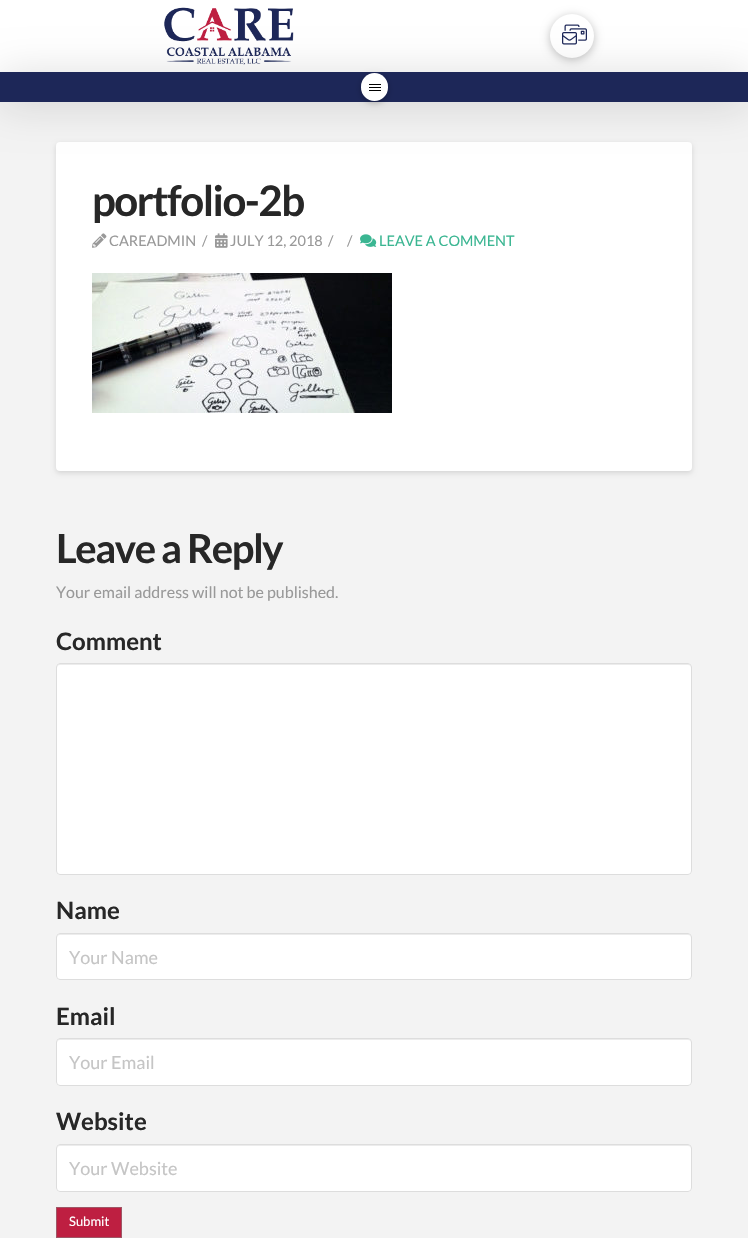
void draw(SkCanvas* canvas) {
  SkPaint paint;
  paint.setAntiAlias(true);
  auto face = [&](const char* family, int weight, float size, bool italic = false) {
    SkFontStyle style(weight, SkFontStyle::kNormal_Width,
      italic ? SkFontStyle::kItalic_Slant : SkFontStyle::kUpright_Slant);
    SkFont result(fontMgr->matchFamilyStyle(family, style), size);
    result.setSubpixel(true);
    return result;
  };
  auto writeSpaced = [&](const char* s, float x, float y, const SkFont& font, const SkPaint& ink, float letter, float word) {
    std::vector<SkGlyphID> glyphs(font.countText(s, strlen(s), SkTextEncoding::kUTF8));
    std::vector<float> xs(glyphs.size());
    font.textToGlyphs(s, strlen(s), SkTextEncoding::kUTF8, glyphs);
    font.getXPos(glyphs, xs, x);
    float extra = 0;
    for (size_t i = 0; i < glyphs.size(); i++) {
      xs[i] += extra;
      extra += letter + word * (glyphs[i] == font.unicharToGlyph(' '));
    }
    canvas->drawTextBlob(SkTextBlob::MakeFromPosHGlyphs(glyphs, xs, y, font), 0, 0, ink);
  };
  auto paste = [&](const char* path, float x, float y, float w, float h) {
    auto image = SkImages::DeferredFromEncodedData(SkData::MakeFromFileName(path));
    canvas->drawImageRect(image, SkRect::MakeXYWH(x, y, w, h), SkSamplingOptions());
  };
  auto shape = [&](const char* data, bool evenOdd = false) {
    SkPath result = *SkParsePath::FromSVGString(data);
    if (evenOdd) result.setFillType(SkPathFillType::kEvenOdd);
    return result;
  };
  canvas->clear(0xfff3f3f3);
  paint.setColor(0xffffffff);
  canvas->drawRect(SkRect::MakeXYWH(0, 0, 748, 72), paint);
  paste("img/1.png", 164, 7, 130, 58);
  paint.setColor(0x40000000);
  paint.setMaskFilter(SkMaskFilter::MakeBlur(kNormal_SkBlurStyle, 5));
  canvas->drawRoundRect(SkRect::MakeXYWH(550, 16, 44, 44), 22, 22, paint);
  paint.setMaskFilter(nullptr);
  paint.setColor(0xffffffff);
  canvas->drawCircle(572, 36, 22, paint);
  paste("img/2.png", 562, 24, 25, 21);
  paint.setColor(0x21000000);
  paint.setMaskFilter(SkMaskFilter::MakeBlur(kNormal_SkBlurStyle, 2.5f));
  canvas->drawRoundRect(SkRect::MakeXYWH(56, 144, 636, 329), 4, 4, paint);
  paint.setMaskFilter(nullptr);
  paint.setColor(0xffffffff);
  canvas->drawRoundRect(SkRect::MakeXYWH(56, 142, 636, 329), 4, 4, paint);
  paint.setColor(0x26000000);
  paint.setMaskFilter(SkMaskFilter::MakeBlur(kNormal_SkBlurStyle, 20));
  canvas->drawRect(SkRect::MakeXYWH(0, 75, 748, 30), paint);
  paint.setMaskFilter(nullptr);
  paint.setColor(0xff1d2758);
  canvas->drawRect(SkRect::MakeXYWH(0, 72, 748, 30), paint);
  paint.setColor(0x40000000);
  paint.setMaskFilter(SkMaskFilter::MakeBlur(kNormal_SkBlurStyle, 3));
  canvas->drawRoundRect(SkRect::MakeXYWH(361, 75, 27, 28), 13.5f, 13.5f, paint);
  paint.setMaskFilter(nullptr);
  paint.setColor(0xffffffff);
  canvas->drawRoundRect(SkRect::MakeXYWH(361, 73, 27, 28), 13.5f, 13.5f, paint);
  {
    const struct { float x, y, w, h; SkColor color; } items[] = {
      {369, 84, 12, 1, 0xff000000},
      {369, 87, 12, 1, 0xff000000},
      {369, 90, 12, 1, 0xff000000},
    };
    for (auto [x, y, w, h, color] : items) {
      paint.setColor(color);
      canvas->drawRect(SkRect::MakeXYWH(x, y, w, h), paint);
    }
  }
  paste("img/3.png", 92, 233, 15, 15);
  paste("img/4.png", 215, 233, 13, 15);
  paste("img/5.png", 360, 234, 17, 13);
  paste("img/6.png", 92, 273, 300, 140);
  paint.setColor(0xffffffff);
  canvas->drawRoundRect(SkRect::MakeXYWH(56, 663, 636, 212), 4, 4, paint);
  paint.setColor(0xffececec);
  canvas->drawPath(shape("M60 665H688C690 665 691 666 691 668V667C691 665 690 664 688 664H60C58 664 57 665 57 667V668C57 666 58 665 60 665Z"), paint);
  paint.setStroke(true);
  paint.setStrokeWidth(1);
  paint.setColor(0xffdddddd);
  canvas->drawRoundRect(SkRect::MakeXYWH(56.5f, 663.5f, 635, 211), 3.5f, 3.5f, paint);
  paint.setStroke(false);
  paint.setColor(0xffffffff);
  canvas->drawRoundRect(SkRect::MakeXYWH(56, 933, 636, 47), 4, 4, paint);
  paint.setColor(0xffececec);
  canvas->drawPath(shape("M60 935H688C690 935 691 936 691 938V937C691 935 690 934 688 934H60C58 934 57 935 57 937V938C57 936 58 935 60 935Z"), paint);
  paint.setStroke(true);
  paint.setColor(0xffdddddd);
  canvas->drawRoundRect(SkRect::MakeXYWH(56.5f, 933.5f, 635, 46), 3.5f, 3.5f, paint);
  paint.setStroke(false);
  paint.setColor(0xffffffff);
  canvas->drawRoundRect(SkRect::MakeXYWH(56, 1038, 636, 48), 4, 4, paint);
  paint.setColor(0xffececec);
  canvas->drawPath(shape("M60 1040H688C690 1040 691 1041 691 1043V1042C691 1040 690 1039 688 1039H60C58 1039 57 1040 57 1042V1043C57 1041 58 1040 60 1040Z"), paint);
  paint.setStroke(true);
  paint.setColor(0xffdddddd);
  canvas->drawRoundRect(SkRect::MakeXYWH(56.5f, 1038.5f, 635, 47), 3.5f, 3.5f, paint);
  paint.setStroke(false);
  paint.setColor(0xffffffff);
  canvas->drawRoundRect(SkRect::MakeXYWH(56, 1144, 636, 48), 4, 4, paint);
  paint.setColor(0xffececec);
  canvas->drawPath(shape("M60 1146H688C690 1146 691 1147 691 1149V1148C691 1146 690 1145 688 1145H60C58 1145 57 1146 57 1148V1149C57 1147 58 1146 60 1146Z"), paint);
  paint.setStroke(true);
  paint.setColor(0xffdddddd);
  canvas->drawRoundRect(SkRect::MakeXYWH(56.5f, 1144.5f, 635, 47), 3.5f, 3.5f, paint);
  paint.setStroke(false);
  paint.setColor(0xffbe1f41);
  canvas->drawRect(SkRect::MakeXYWH(56.5f, 1207.5f, 65, 30), paint);
  paint.setStroke(true);
  paint.setColor(0xff9e5766);
  canvas->drawRect(SkRect::MakeXYWH(56.5f, 1207.5f, 65, 30), paint);
  auto f0 = face("Lato", 700, 42);
  paint.setStroke(false);
  paint.setColor(0xff272727);
  writeSpaced("portfolio-2b", 92, 216, f0, paint, -1.5f, 0);
  auto f1 = face("Lato", 400, 14.5f);
  paint.setColor(0xff999999);
  {
    const struct { const char* s; float x, y; } items[] = {
      {"CAREADMIN", 109, 246},
      {"/", 202, 246},
      {"JULY 12, 2018", 230, 246},
      {"/", 328, 246},
      {"/", 347, 246},
    };
    for (auto [s, x, y] : items) {
      canvas->drawString(s, x, y, f1, paint);
    }
  }
  paint.setColor(0xff3bb692);
  canvas->drawString("LEAVE A COMMENT", 379, 246, f1, paint);
  auto f2 = face("Lato", 700, 40);
  paint.setColor(0xff272727);
  writeSpaced("Leave a Reply", 56, 563, f2, paint, -1.4f, 0);
  auto f3 = face("Lato", 400, 16);
  paint.setColor(0xff999999);
  canvas->drawString("Your email address will not be published.", 56, 598, f3, paint);
  auto f4 = face("Lato", 700, 24);
  paint.setColor(0xff272727);
  canvas->drawString("Comment", 56, 650, f4, paint);
  canvas->drawString("Name", 56, 919, f4, paint);
  auto f5 = face("Lato", 400, 18);
  paint.setColor(0xffc5c5c5);
  canvas->drawString("Your Name", 69, 964, f5, paint);
  paint.setColor(0xff272727);
  canvas->drawString("Email", 56, 1025, f4, paint);
  paint.setColor(0xffc5c5c5);
  canvas->drawString("Your Email", 69, 1069, f5, paint);
  paint.setColor(0xff272727);
  canvas->drawString("Website", 56, 1130, f4, paint);
  paint.setColor(0xffc5c5c5);
  canvas->drawString("Your Website", 69, 1175, f5, paint);
  auto f6 = face("Lato", 400, 13);
  paint.setColor(0xffffffff);
  canvas->drawString("Submit", 69, 1226, f6, paint);
}
